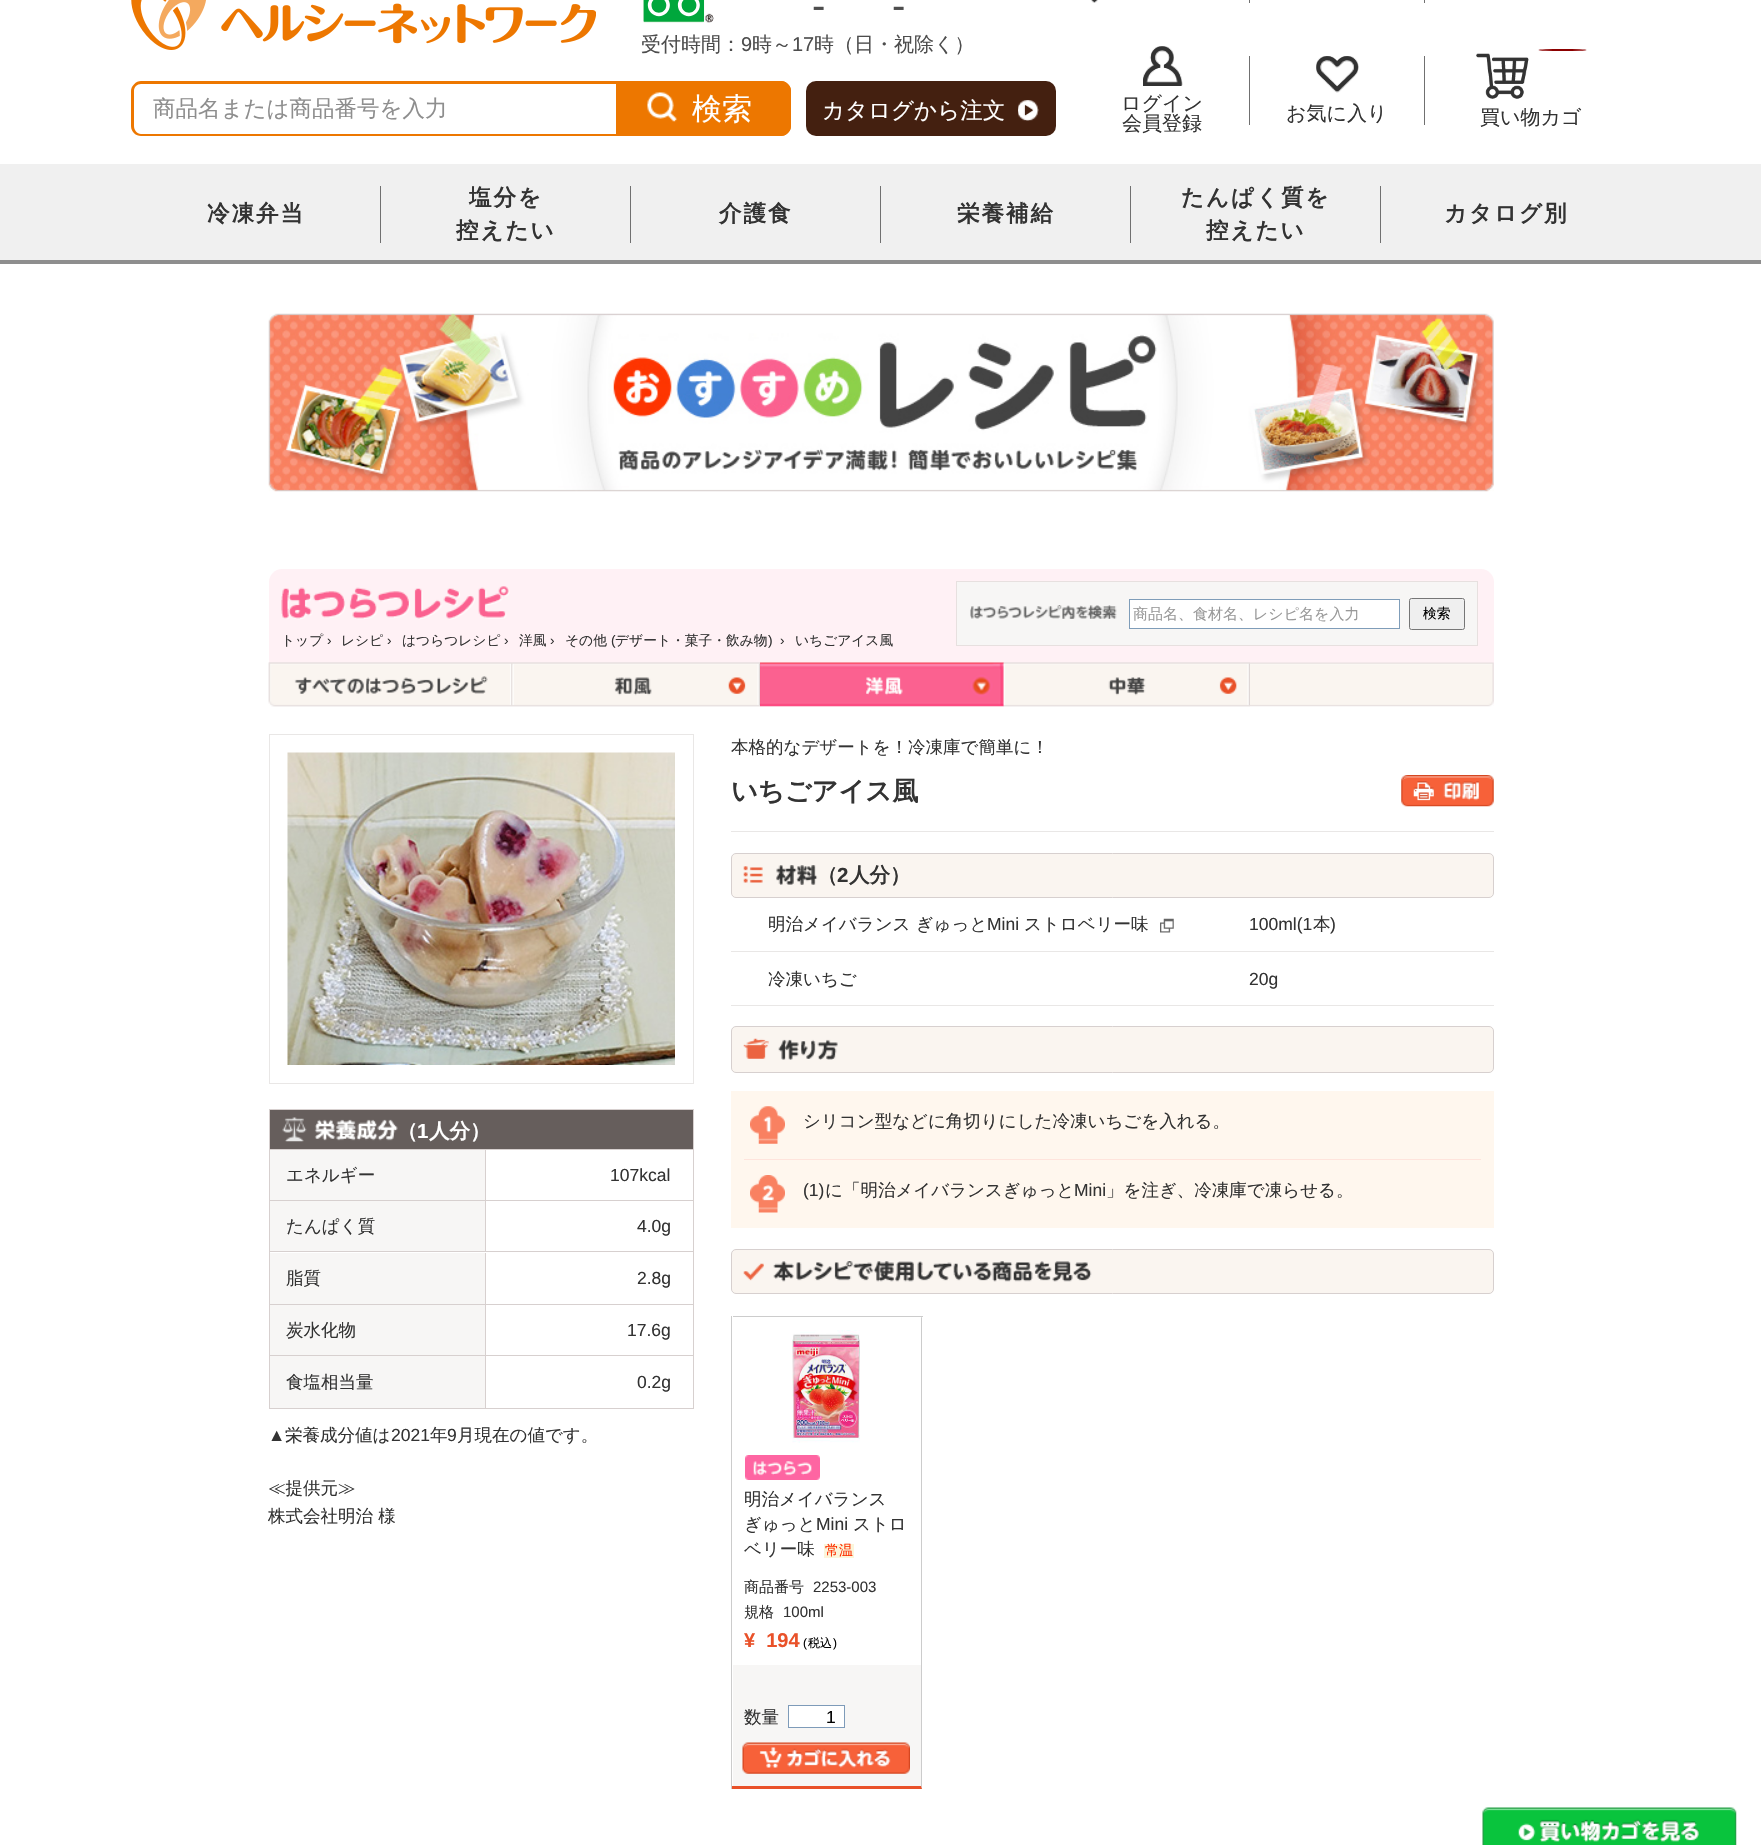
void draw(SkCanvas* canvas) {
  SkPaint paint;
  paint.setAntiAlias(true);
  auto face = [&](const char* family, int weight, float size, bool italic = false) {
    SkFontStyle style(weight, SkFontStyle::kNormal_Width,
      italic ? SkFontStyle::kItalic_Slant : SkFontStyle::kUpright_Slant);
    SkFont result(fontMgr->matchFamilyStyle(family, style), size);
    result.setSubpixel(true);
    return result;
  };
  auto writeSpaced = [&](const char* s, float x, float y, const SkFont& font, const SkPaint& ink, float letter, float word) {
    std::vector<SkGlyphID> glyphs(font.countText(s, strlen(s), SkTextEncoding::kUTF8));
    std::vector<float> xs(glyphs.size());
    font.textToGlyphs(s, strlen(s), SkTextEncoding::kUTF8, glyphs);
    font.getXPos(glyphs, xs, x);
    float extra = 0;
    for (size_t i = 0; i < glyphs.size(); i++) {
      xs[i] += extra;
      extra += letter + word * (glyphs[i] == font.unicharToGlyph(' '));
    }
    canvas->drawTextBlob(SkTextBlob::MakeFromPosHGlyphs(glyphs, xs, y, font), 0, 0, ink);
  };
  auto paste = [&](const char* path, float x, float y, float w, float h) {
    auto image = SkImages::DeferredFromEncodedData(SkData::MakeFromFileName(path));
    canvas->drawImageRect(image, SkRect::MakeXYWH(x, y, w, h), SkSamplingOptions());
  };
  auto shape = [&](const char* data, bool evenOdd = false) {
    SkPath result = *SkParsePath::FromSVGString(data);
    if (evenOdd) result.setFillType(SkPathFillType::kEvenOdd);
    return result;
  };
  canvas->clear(0xffffffff);
  paste("img/1.png", 131, 0, 465, 50);
  paste("img/2.png", 1091, 0, 7, 3);
  paint.setColor(0xff707070);
  canvas->drawRect(SkRect::MakeXYWH(1249, 0, 1, 3), paint);
  canvas->drawRect(SkRect::MakeXYWH(1424, 0, 1, 3), paint);
  paste("img/3.png", 643, 0, 71, 23);
  paint.setColor(0xffed7700);
  canvas->drawPath(shape("M141 81H616V136H141C136 136 131 132 131 126V91C131 86 136 81 141 81ZM141 84H616V134H141C137 134 134 130 134 126V91C134 87 137 84 141 84Z", true), paint);
  canvas->drawPath(shape("M616 81H781C786.5 81 791 85.5 791 91V126C791 131.5 786.5 136 781 136H616Z"), paint);
  paste("img/4.png", 647, 92, 31, 30);
  paint.setStroke(true);
  paint.setStrokeWidth(1);
  canvas->drawPath(shape("M616.5 81.5H781C786 81.5 790.5 86 790.5 91V126C790.5 131 786 135.5 781 135.5H616.5Z"), paint);
  paint.setStroke(false);
  paint.setColor(0xff442010);
  canvas->drawRoundRect(SkRect::MakeXYWH(806, 81, 250, 55), 10, 10, paint);
  paste("img/5.png", 1018, 100, 21, 21);
  paste("img/6.png", 1143, 46, 40, 40);
  paint.setColor(0xff707070);
  canvas->drawRect(SkRect::MakeXYWH(1249, 56, 1, 69), paint);
  paste("img/7.png", 1316, 56, 43, 37);
  canvas->drawRect(SkRect::MakeXYWH(1424, 56, 1, 69), paint);
  paint.setColor(0xff8c0000);
  canvas->drawOval(SkRect::MakeXYWH(1538.5f, 49, 48, 2), paint);
  paste("img/8.png", 1476, 53, 53, 46);
  {
    const struct { float x, y, w, h; SkColor color; } items[] = {
      {0, 164, 1761, 96, 0xfff0f0f0},
      {380, 186, 1, 57, 0xff707070},
      {630, 186, 1, 57, 0xff707070},
      {880, 186, 1, 57, 0xff707070},
      {1130, 186, 1, 57, 0xff707070},
      {1380, 186, 1, 57, 0xff707070},
      {0, 260, 1761, 4, 0xff8e8e8e},
    };
    for (auto [x, y, w, h, color] : items) {
      paint.setColor(color);
      canvas->drawRect(SkRect::MakeXYWH(x, y, w, h), paint);
    }
  }
  paste("img/9.png", 268, 313, 1226, 179);
  paint.setColor(0xfffff1f5);
  canvas->drawPath(shape("M282 569H1481C1488 569 1494 575 1494 582V706H269V582C269 575 275 569 282 569Z"), paint);
  paint.setColor(0xfff7f6f5);
  canvas->drawRect(SkRect::MakeXYWH(956.5f, 581.5f, 521, 64), paint);
  paint.setStroke(true);
  paint.setColor(0xffe7e0df);
  canvas->drawRect(SkRect::MakeXYWH(956.5f, 581.5f, 521, 64), paint);
  paste("img/10.png", 970, 605, 147, 14);
  paint.setStroke(false);
  paint.setColor(0xffffffff);
  canvas->drawRect(SkRect::MakeXYWH(1129.5f, 599.5f, 270, 29), paint);
  paint.setStroke(true);
  paint.setColor(0xff7f9db9);
  canvas->drawRect(SkRect::MakeXYWH(1129.5f, 599.5f, 270, 29), paint);
  paint.setStroke(false);
  paint.setColor(0xffefefef);
  canvas->drawRoundRect(SkRect::MakeXYWH(1409.5f, 598.5f, 55, 31), 2, 2, paint);
  paint.setStroke(true);
  paint.setColor(0xff767676);
  canvas->drawRoundRect(SkRect::MakeXYWH(1409.5f, 598.5f, 55, 31), 2, 2, paint);
  paste("img/11.png", 281, 586, 229, 34);
  paste("img/12.png", 268, 662, 1226, 45);
  paste("img/13.png", 268, 662, 245, 45);
  paste("img/14.png", 512, 662, 248, 45);
  paste("img/15.png", 760, 662, 244, 45);
  paste("img/16.png", 1003, 662, 247, 45);
  paint.setColor(0xffe9e7e6);
  canvas->drawRect(SkRect::MakeXYWH(269.5f, 734.5f, 424, 349), paint);
  paste("img/17.png", 287, 752, 388, 313);
  paint.setStroke(false);
  paint.setColor(0xff665e5c);
  canvas->drawRect(SkRect::MakeXYWH(269.5f, 1109.5f, 424, 40), paint);
  paint.setStroke(true);
  paint.setColor(0xffd7d0cf);
  canvas->drawRect(SkRect::MakeXYWH(269.5f, 1109.5f, 424, 40), paint);
  paste("img/18.png", 282, 1117, 116, 25);
  paint.setStroke(false);
  {
    const struct { float x, y, w, h; SkColor color; } items[] = {
      {693, 1150, 1, 259, 0xffd7d0cf},
      {269, 1200, 424, 1, 0xffd7d0cf},
      {269, 1150, 1, 51, 0xffd7d0cf},
      {270, 1150, 215, 50, 0xfff7f6f5},
      {485, 1150, 1, 50, 0xffd7d0cf},
      {269, 1251, 424, 1, 0xffd7d0cf},
      {269, 1201, 1, 52, 0xffd7d0cf},
      {270, 1201, 215, 50, 0xfff7f6f5},
      {485, 1201, 1, 50, 0xffd7d0cf},
      {269, 1304, 424, 1, 0xffd7d0cf},
      {269, 1253, 1, 52, 0xffd7d0cf},
      {270, 1253, 215, 51, 0xfff7f6f5},
      {485, 1253, 1, 51, 0xffd7d0cf},
      {269, 1355, 424, 1, 0xffd7d0cf},
      {269, 1305, 1, 51, 0xffd7d0cf},
      {270, 1305, 215, 50, 0xfff7f6f5},
      {485, 1305, 1, 50, 0xffd7d0cf},
      {269, 1408, 424, 1, 0xffd7d0cf},
      {269, 1356, 1, 53, 0xffd7d0cf},
      {270, 1356, 215, 52, 0xfff7f6f5},
      {485, 1356, 1, 52, 0xffd7d0cf},
      {731, 831, 763, 1, 0xffe9e7e6},
    };
    for (auto [x, y, w, h, color] : items) {
      paint.setColor(color);
      canvas->drawRect(SkRect::MakeXYWH(x, y, w, h), paint);
    }
  }
  paste("img/19.png", 1401, 775, 93, 32);
  paint.setColor(0xfffaf5f0);
  canvas->drawRoundRect(SkRect::MakeXYWH(731.5f, 853.5f, 762, 44), 4.5f, 4.5f, paint);
  paint.setStroke(true);
  paint.setColor(0xffd7d0cf);
  canvas->drawRoundRect(SkRect::MakeXYWH(731.5f, 853.5f, 762, 44), 4.5f, 4.5f, paint);
  paste("img/20.png", 743, 865, 75, 20);
  paint.setStroke(false);
  paint.setColor(0xffe9e7e6);
  canvas->drawRect(SkRect::MakeXYWH(731, 951, 763, 1), paint);
  paste("img/21.png", 1160, 918, 14, 15);
  canvas->drawRect(SkRect::MakeXYWH(731, 1005, 763, 1), paint);
  paint.setColor(0xfffaf5f0);
  canvas->drawRoundRect(SkRect::MakeXYWH(731.5f, 1026.5f, 762, 46), 4.5f, 4.5f, paint);
  paint.setStroke(true);
  paint.setColor(0xffd7d0cf);
  canvas->drawRoundRect(SkRect::MakeXYWH(731.5f, 1026.5f, 762, 46), 4.5f, 4.5f, paint);
  paste("img/22.png", 743, 1038, 95, 22);
  paint.setStroke(false);
  paint.setColor(0xfffff7ee);
  canvas->drawRect(SkRect::MakeXYWH(731, 1091, 763, 137), paint);
  paint.setColor(0xffffe4dc);
  canvas->drawRect(SkRect::MakeXYWH(744, 1159, 737, 1), paint);
  paste("img/23.png", 750, 1106, 35, 38);
  paste("img/24.png", 750, 1175, 35, 38);
  paint.setColor(0xfffaf5f0);
  canvas->drawRoundRect(SkRect::MakeXYWH(731.5f, 1249.5f, 762, 44), 4.5f, 4.5f, paint);
  paint.setStroke(true);
  paint.setColor(0xffd7d0cf);
  canvas->drawRoundRect(SkRect::MakeXYWH(731.5f, 1249.5f, 762, 44), 4.5f, 4.5f, paint);
  paste("img/25.png", 743, 1261, 349, 21);
  paint.setStroke(false);
  paint.setColor(0xffcccccc);
  canvas->drawRect(SkRect::MakeXYWH(731, 1316, 1, 473), paint);
  canvas->drawRect(SkRect::MakeXYWH(733, 1316, 190, 1), paint);
  canvas->drawPath(shape("M922 1316V1789L921 1786V1318Z"), paint);
  paint.setColor(0xffe95129);
  canvas->drawPath(shape("M922 1789H732V1786H921Z"), paint);
  paste("img/26.png", 792, 1330, 68, 113);
  paste("img/27.png", 745, 1455, 75, 25);
  paint.setColor(0xfffbf5db);
  canvas->drawRect(SkRect::MakeXYWH(824, 1544, 30, 14), paint);
  paint.setColor(0xfff7f6f5);
  canvas->drawRect(SkRect::MakeXYWH(733, 1665, 188, 121), paint);
  paint.setColor(0xffffffff);
  canvas->drawRect(SkRect::MakeXYWH(788.5f, 1705.5f, 56, 22), paint);
  paint.setStroke(true);
  paint.setColor(0xff7e9bb9);
  canvas->drawRect(SkRect::MakeXYWH(788.5f, 1705.5f, 56, 22), paint);
  paste("img/28.png", 742, 1742, 168, 32);
  paste("img/29.png", 1482, 1807, 255, 38);
  auto f0 = face("Liberation Sans", 400, 40);
  paint.setStroke(false);
  paint.setColor(0xff4d4d4d);
  canvas->drawString("-", 812, 19, f0, paint);
  canvas->drawString("-", 892, 19, f0, paint);
  auto f1 = face("WenQuanYi Zen Hei", 500, 20);
  canvas->drawString("受付時間：", 641, 51, f1, paint);
  auto f2 = face("Liberation Sans", 400, 20);
  canvas->drawString("9", 741, 51, f2, paint);
  canvas->drawString("時～", 752, 51, f1, paint);
  canvas->drawString("17", 792, 51, f2, paint);
  canvas->drawString("時（日・祝除く）", 814, 51, f1, paint);
  auto f3 = face("WenQuanYi Zen Hei", 500, 22.5f);
  paint.setColor(0xff8e8e8e);
  canvas->drawString("商品名または商品番号を入力", 153, 116, f3, paint);
  auto f4 = face("WenQuanYi Zen Hei", 500, 30);
  paint.setColor(0xffffffff);
  canvas->drawString("検索", 692, 119, f4, paint);
  canvas->drawString("カタログから注文", 822, 118, f3, paint);
  paint.setColor(0xff333333);
  {
    const struct { const char* s; float x, y; } items[] = {
      {"ログイン", 1121, 110},
      {"会員登録", 1122, 130},
      {"お気に入り", 1286, 120},
      {"買い物カゴ", 1480, 124},
    };
    for (auto [s, x, y] : items) {
      canvas->drawString(s, x, y, f1, paint);
    }
  }
  auto f5 = face("WenQuanYi Zen Hei", 700, 22.5f);
  {
    const struct { const char* s; float x, y; } items[] = {
      {"冷凍弁当", 207, 221},
      {"塩分を", 469, 205},
      {"控えたい", 456, 238},
      {"介護食", 719, 221},
      {"栄養補給", 957, 221},
      {"たんぱく質を", 1181, 205},
      {"控えたい", 1206, 238},
      {"カタログ別", 1444, 221},
    };
    for (auto [s, x, y] : items) {
      writeSpaced(s, x, y, f5, paint, 2, 0);
    }
  }
  auto f6 = face("WenQuanYi Zen Hei", 500, 15);
  paint.setColor(0xff999999);
  canvas->drawString("商品名、食材名、レシピ名を入力", 1133, 619, f6, paint);
  auto f7 = face("WenQuanYi Zen Hei", 500, 13.75f);
  paint.setColor(0xff000000);
  canvas->drawString("検索", 1423, 618, f7, paint);
  paint.setColor(0xff333333);
  canvas->drawString("トップ", 281, 645, f7, paint);
  auto f8 = face("Liberation Sans", 400, 13.75f);
  canvas->drawString("›", 327, 645, f8, paint);
  canvas->drawString("レシピ", 341, 645, f7, paint);
  canvas->drawString("›", 387, 645, f8, paint);
  canvas->drawString("はつらつレシピ", 402, 645, f7, paint);
  canvas->drawString("›", 504, 645, f8, paint);
  canvas->drawString("洋風", 519, 645, f7, paint);
  canvas->drawString("›", 550, 645, f8, paint);
  canvas->drawString("その他", 565, 645, f7, paint);
  canvas->drawString("(", 611, 645, f8, paint);
  canvas->drawString("デザート・菓子・飲み物", 615, 645, f7, paint);
  canvas->drawString(")", 768, 645, f8, paint);
  canvas->drawString("›", 780, 645, f8, paint);
  canvas->drawString("いちごアイス風", 795, 645, f7, paint);
  auto f9 = face("WenQuanYi Zen Hei", 700, 20.5f);
  paint.setColor(0xffffffff);
  canvas->drawString("（", 397, 1138, f9, paint);
  auto f10 = face("Liberation Sans", 700, 20.5f);
  canvas->drawString("1", 417, 1138, f10, paint);
  canvas->drawString("人分）", 429, 1138, f9, paint);
  auto f11 = face("WenQuanYi Zen Hei", 500, 17.5f);
  paint.setColor(0xff333333);
  canvas->drawString("エネルギー", 286, 1181, f11, paint);
  auto f12 = face("Liberation Sans", 400, 17.5f);
  canvas->drawString("107kcal", 610, 1181, f12, paint);
  canvas->drawString("たんぱく質", 286, 1232, f11, paint);
  canvas->drawString("4.0g", 637, 1232, f12, paint);
  canvas->drawString("脂質", 286, 1284, f11, paint);
  canvas->drawString("2.8g", 637, 1284, f12, paint);
  canvas->drawString("炭水化物", 286, 1336, f11, paint);
  canvas->drawString("17.6g", 627, 1336, f12, paint);
  canvas->drawString("食塩相当量", 286, 1388, f11, paint);
  canvas->drawString("0.2g", 637, 1388, f12, paint);
  canvas->drawString("▲", 268, 1441, f12, paint);
  canvas->drawString("栄養成分値は", 285, 1441, f11, paint);
  canvas->drawString("2021", 391, 1441, f12, paint);
  canvas->drawString("年", 430, 1441, f11, paint);
  canvas->drawString("9", 447, 1441, f12, paint);
  {
    const struct { const char* s; float x, y; } items[] = {
      {"月現在の値です。", 457, 1441},
      {"≪提供元≫", 268, 1494},
      {"株式会社明治 様", 268, 1522},
      {"本格的なデザートを！冷凍庫で簡単に！", 731, 753},
    };
    for (auto [s, x, y] : items) {
      canvas->drawString(s, x, y, f11, paint);
    }
  }
  auto f13 = face("WenQuanYi Zen Hei", 700, 26.25f);
  canvas->drawString("いちごアイス風", 731, 800, f13, paint);
  canvas->drawString("（", 817, 882, f9, paint);
  canvas->drawString("2", 837, 882, f10, paint);
  canvas->drawString("人分）", 849, 882, f9, paint);
  canvas->drawString("明治メイバランス ぎゅっと", 768, 930, f11, paint);
  canvas->drawString("Mini", 987, 930, f12, paint);
  canvas->drawString("ストロベリー味", 1024, 930, f11, paint);
  canvas->drawString("100ml(1", 1249, 930, f12, paint);
  canvas->drawString("本", 1313, 930, f11, paint);
  canvas->drawString(")", 1330, 930, f12, paint);
  canvas->drawString("冷凍いちご", 768, 985, f11, paint);
  canvas->drawString("20g", 1249, 985, f12, paint);
  canvas->drawString("シリコン型などに角切りにした冷凍いちごを入れる。", 803, 1127, f11, paint);
  canvas->drawString("(1)", 803, 1196, f12, paint);
  canvas->drawString("に「明治メイバランスぎゅっと", 825, 1196, f11, paint);
  canvas->drawString("Mini", 1074, 1196, f12, paint);
  {
    const struct { const char* s; float x, y; } items[] = {
      {"」を注ぎ、冷凍庫で凍らせる。", 1106, 1196},
      {"明治メイバランス", 744, 1505},
      {"ぎゅっと", 744, 1530},
    };
    for (auto [s, x, y] : items) {
      canvas->drawString(s, x, y, f11, paint);
    }
  }
  canvas->drawString("Mini", 816, 1530, f12, paint);
  canvas->drawString("ストロ", 853, 1530, f11, paint);
  canvas->drawString("ベリー味", 744, 1555, f11, paint);
  auto f14 = face("WenQuanYi Zen Hei", 500, 14);
  paint.setColor(0xfffe2e00);
  canvas->drawString("常温", 825, 1555, f14, paint);
  paint.setColor(0xff333333);
  canvas->drawString("商品番号", 744, 1592, f6, paint);
  auto f15 = face("Liberation Sans", 400, 15);
  canvas->drawString("2253-003", 813, 1592, f15, paint);
  canvas->drawString("規格", 744, 1617, f6, paint);
  canvas->drawString("100ml", 783, 1617, f15, paint);
  auto f16 = face("Liberation Sans", 700, 20);
  paint.setColor(0xffe95129);
  canvas->drawString("¥  194", 744, 1647, f16, paint);
  auto f17 = face("Liberation Sans", 400, 12);
  paint.setColor(0xff000000);
  canvas->drawString("(", 803, 1647, f17, paint);
  auto f18 = face("WenQuanYi Zen Hei", 500, 12);
  canvas->drawString("税込", 808, 1647, f18, paint);
  canvas->drawString(")", 833, 1647, f17, paint);
  paint.setColor(0xff333333);
  canvas->drawString("数量", 744, 1723, f11, paint);
  paint.setColor(0xff000000);
  canvas->drawString("1", 826, 1723, f12, paint);
}
